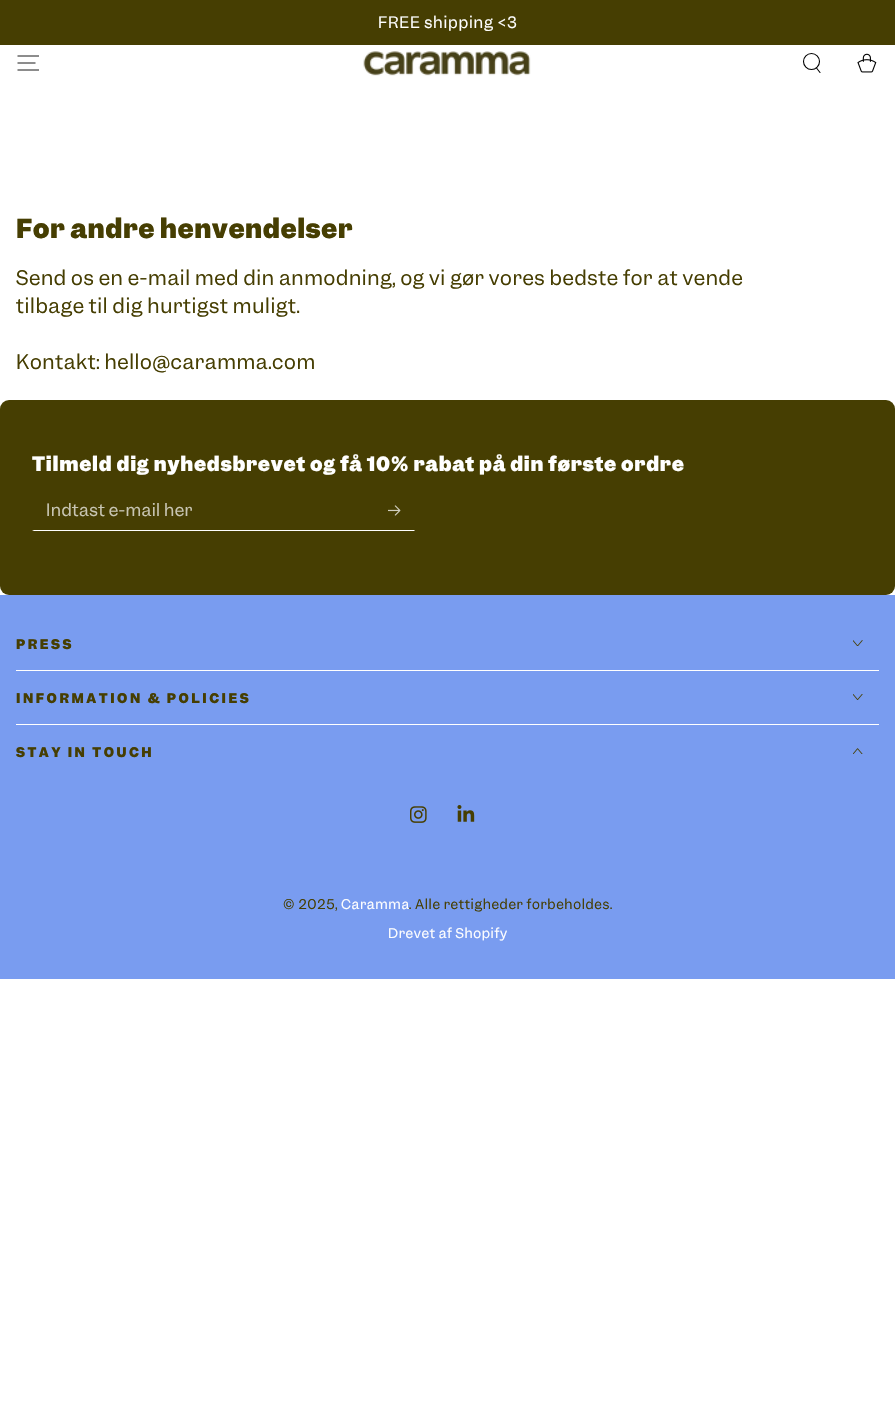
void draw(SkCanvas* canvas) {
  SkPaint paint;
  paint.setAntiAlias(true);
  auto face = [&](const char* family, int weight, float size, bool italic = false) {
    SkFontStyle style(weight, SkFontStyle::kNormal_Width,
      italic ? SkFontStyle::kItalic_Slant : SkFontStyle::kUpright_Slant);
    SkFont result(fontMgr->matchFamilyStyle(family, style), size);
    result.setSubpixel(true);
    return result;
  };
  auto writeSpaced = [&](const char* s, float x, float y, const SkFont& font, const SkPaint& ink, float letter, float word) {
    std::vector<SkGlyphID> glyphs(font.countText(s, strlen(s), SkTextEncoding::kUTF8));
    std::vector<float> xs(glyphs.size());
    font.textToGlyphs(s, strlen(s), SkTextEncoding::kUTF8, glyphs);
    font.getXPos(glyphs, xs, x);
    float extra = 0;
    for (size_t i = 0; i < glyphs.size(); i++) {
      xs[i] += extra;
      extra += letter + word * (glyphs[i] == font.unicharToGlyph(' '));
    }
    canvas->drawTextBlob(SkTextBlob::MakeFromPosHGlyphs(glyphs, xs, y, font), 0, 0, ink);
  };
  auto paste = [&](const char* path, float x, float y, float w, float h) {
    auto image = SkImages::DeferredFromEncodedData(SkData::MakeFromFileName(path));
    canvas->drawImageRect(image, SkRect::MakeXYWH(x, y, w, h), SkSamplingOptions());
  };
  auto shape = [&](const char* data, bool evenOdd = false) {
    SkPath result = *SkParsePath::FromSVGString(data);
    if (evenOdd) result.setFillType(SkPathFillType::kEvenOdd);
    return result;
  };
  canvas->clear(0xffffffff);
  paint.setColor(0xff463e02);
  canvas->drawRect(SkRect::MakeXYWH(0, 0, 895, 45), paint);
  paint.setStroke(true);
  paint.setStrokeWidth(0.9f);
  paint.setColor(0xff000000);
  canvas->drawPath(shape("M17.5 70H39M17.5 63H35.5M17.5 56H39"), paint);
  paste("img/1.png", 363, 51, 168, 25);
  paint.setStrokeWidth(1.1f);
  canvas->drawCircle(811.5f, 61.5f, 8, paint);
  paint.setStrokeCap(SkPaint::kRound_Cap);
  canvas->drawPath(shape("M816.5 68L820 72.5"), paint);
  paste("img/2.png", 857, 53, 20, 20);
  paint.setStroke(false);
  paint.setColor(0xff463e02);
  canvas->drawRoundRect(SkRect::MakeXYWH(0, 400, 895, 195), 9, 9, paint);
  paint.setColor(0xffffffff);
  canvas->drawPath(shape("M415 531H32L34 530H414Z"), paint);
  paste("img/3.png", 388, 505, 13, 11);
  paint.setColor(0xff799cf0);
  canvas->drawRect(SkRect::MakeXYWH(0, 595, 895, 384), paint);
  paint.setColor(0xffffffff);
  canvas->drawRect(SkRect::MakeXYWH(16, 670, 863, 1), paint);
  paste("img/4.png", 853, 640, 10, 6);
  canvas->drawRect(SkRect::MakeXYWH(16, 724, 863, 1), paint);
  paste("img/5.png", 853, 694, 10, 6);
  paste("img/6.png", 853, 748, 10, 6);
  paste("img/7.png", 410, 806, 17, 17);
  paste("img/8.png", 457, 805, 18, 17);
  auto f0 = face("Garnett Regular", 400, 15);
  writeSpaced("FREE shipping <3", 378, 28, f0, paint, 0.8f, 0);
  auto f1 = face("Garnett", 700, 25);
  paint.setColor(0xff463e02);
  writeSpaced("For andre henvendelser", 16, 238, f1, paint, 0.5f, 0);
  auto f2 = face("Garnett Regular", 400, 19.1f);
  {
    const struct { const char* s; float x, y; } items[] = {
      {"Send os en e-mail med din anmodning, og vi gør vores bedste for at vende", 16, 285},
      {"tilbage til dig hurtigst muligt.", 16, 313},
      {"Kontakt: hello@caramma.com", 16, 369},
    };
    for (auto [s, x, y] : items) {
      writeSpaced(s, x, y, f2, paint, 0.65f, 0);
    }
  }
  auto f3 = face("Garnett", 700, 18.75f);
  paint.setColor(0xffffffff);
  writeSpaced("Tilmeld dig nyhedsbrevet og få 10% rabat på din første ordre", 32, 471, f3, paint, 0.75f, 0);
  auto f4 = face("Garnett Regular", 400, 16);
  paint.setColor(0xffc8c5b3);
  writeSpaced("Indtast e-mail her", 46, 516, f4, paint, 0.4f, 0);
  auto f5 = face("Garnett", 700, 12.75f);
  paint.setColor(0xff463e02);
  {
    const struct { const char* s; float x, y; } items[] = {
      {"PRESS", 16, 649},
      {"INFORMATION & POLICIES", 16, 703},
      {"STAY IN TOUCH", 16, 757},
    };
    for (auto [s, x, y] : items) {
      writeSpaced(s, x, y, f5, paint, 2.55f, 0);
    }
  }
  auto f6 = face("Garnett Regular", 400, 12.75f);
  writeSpaced("© 2025,", 283, 909, f6, paint, 0.65f, 0);
  paint.setColor(0xffffffff);
  writeSpaced("Caramma", 341, 909, f6, paint, 0.65f, 0);
  paint.setColor(0xff463e02);
  writeSpaced(". Alle rettigheder forbeholdes.", 409, 909, f6, paint, 0.65f, 0);
  paint.setColor(0xffffffff);
  writeSpaced("Drevet af Shopify", 388, 938, f6, paint, 0.65f, 0);
}
